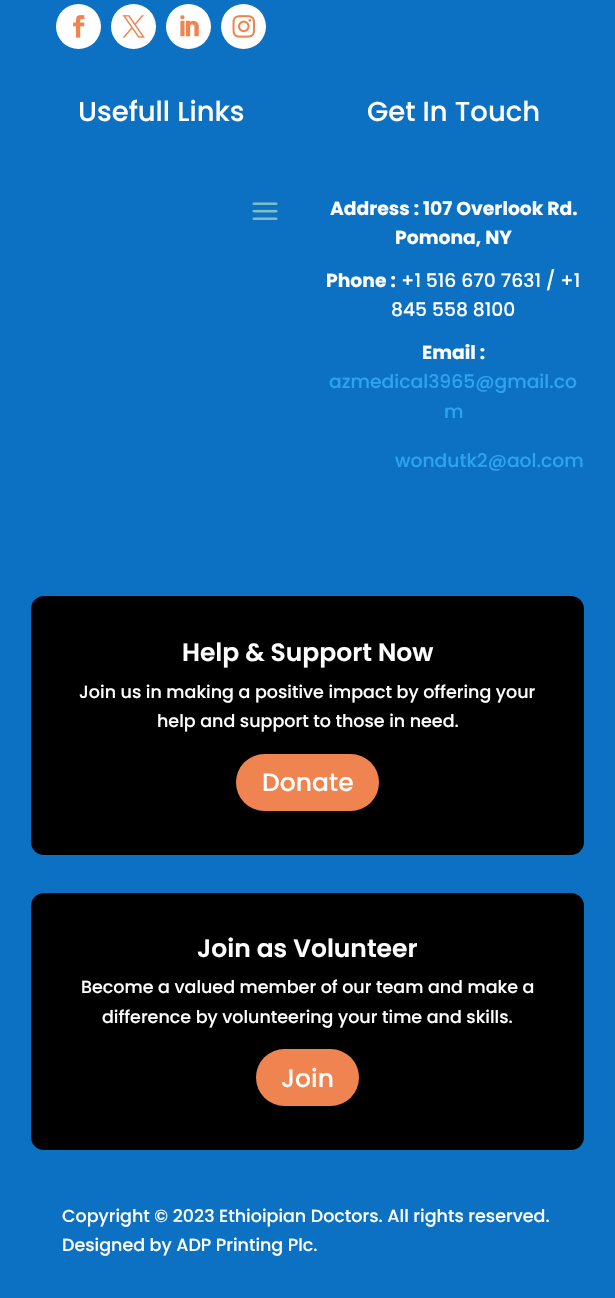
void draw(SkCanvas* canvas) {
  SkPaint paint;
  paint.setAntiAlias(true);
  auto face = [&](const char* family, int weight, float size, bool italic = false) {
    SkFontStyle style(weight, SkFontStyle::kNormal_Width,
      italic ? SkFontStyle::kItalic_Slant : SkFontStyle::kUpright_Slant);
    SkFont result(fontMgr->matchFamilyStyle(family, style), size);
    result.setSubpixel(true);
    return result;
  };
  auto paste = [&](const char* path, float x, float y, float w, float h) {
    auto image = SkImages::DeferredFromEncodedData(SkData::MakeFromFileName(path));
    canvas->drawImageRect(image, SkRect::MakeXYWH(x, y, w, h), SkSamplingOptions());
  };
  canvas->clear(0xff0c71c3);
  paint.setColor(0xffffffff);
  canvas->drawCircle(78.5f, 26.5f, 22.5f, paint);
  paste("img/1.png", 73, 15, 12, 23);
  canvas->drawCircle(133.5f, 26.5f, 22.5f, paint);
  paste("img/2.png", 122, 15, 23, 23);
  canvas->drawCircle(188.5f, 26.5f, 22.5f, paint);
  paste("img/3.png", 180, 15, 19, 22);
  canvas->drawCircle(243.5f, 26.5f, 22.5f, paint);
  paste("img/4.png", 232, 15, 23, 23);
  paste("img/5.png", 252, 202, 26, 18);
  paint.setColor(0xff000000);
  canvas->drawRoundRect(SkRect::MakeXYWH(31, 596, 553, 259), 13, 13, paint);
  paint.setColor(0xffef8451);
  canvas->drawRoundRect(SkRect::MakeXYWH(236, 754, 143, 57), 28.5f, 28.5f, paint);
  paint.setColor(0xff000000);
  canvas->drawRoundRect(SkRect::MakeXYWH(31, 893, 553, 257), 13, 13, paint);
  paint.setColor(0xffef8451);
  canvas->drawRoundRect(SkRect::MakeXYWH(256, 1049, 103, 57), 28.5f, 28.5f, paint);
  auto f0 = face("Poppins", 500, 27.5f);
  paint.setColor(0xffffffff);
  canvas->drawString("Usefull Links", 78, 121, f0, paint);
  canvas->drawString("Get In Touch", 367, 121, f0, paint);
  auto f1 = face("Poppins", 700, 18.75f);
  {
    const struct { const char* s; float x, y; } items[] = {
      {"Address : 107 Overlook Rd.", 330, 215},
      {"Pomona, NY", 395, 244},
      {"Phone :", 326, 287},
    };
    for (auto [s, x, y] : items) {
      canvas->drawString(s, x, y, f1, paint);
    }
  }
  auto f2 = face("Poppins", 500, 18.75f);
  canvas->drawString("+1 516 670 7631 / +1", 401, 287, f2, paint);
  canvas->drawString("845 558 8100", 391, 316, f2, paint);
  canvas->drawString("Email :", 422, 359, f1, paint);
  paint.setColor(0xff2ea3f2);
  {
    const struct { const char* s; float x, y; } items[] = {
      {"azmedical3965@gmail.co", 329, 388},
      {"m", 444, 418},
      {"wondutk2@aol.com", 395, 467},
    };
    for (auto [s, x, y] : items) {
      canvas->drawString(s, x, y, f2, paint);
    }
  }
  auto f3 = face("Poppins", 600, 25);
  paint.setColor(0xffffffff);
  canvas->drawString("Help & Support Now", 182, 661, f3, paint);
  auto f4 = face("Poppins", 500, 17.5f);
  canvas->drawString("Join us in making a positive impact by offering your", 79, 698, f4, paint);
  canvas->drawString("help and support to those in need.", 157, 727, f4, paint);
  auto f5 = face("Poppins", 500, 25);
  canvas->drawString("Donate", 262, 791, f5, paint);
  canvas->drawString("Join as Volunteer", 197, 957, f3, paint);
  canvas->drawString("Become a valued member of our team and make a", 81, 993, f4, paint);
  canvas->drawString("difference by volunteering your time and skills.", 102, 1023, f4, paint);
  canvas->drawString("Join", 281, 1087, f5, paint);
  canvas->drawString("Copyright © 2023 Ethioipian Doctors. All rights reserved.", 62, 1222, f4, paint);
  canvas->drawString("Designed by ADP Printing Plc.", 62, 1251, f4, paint);
}
